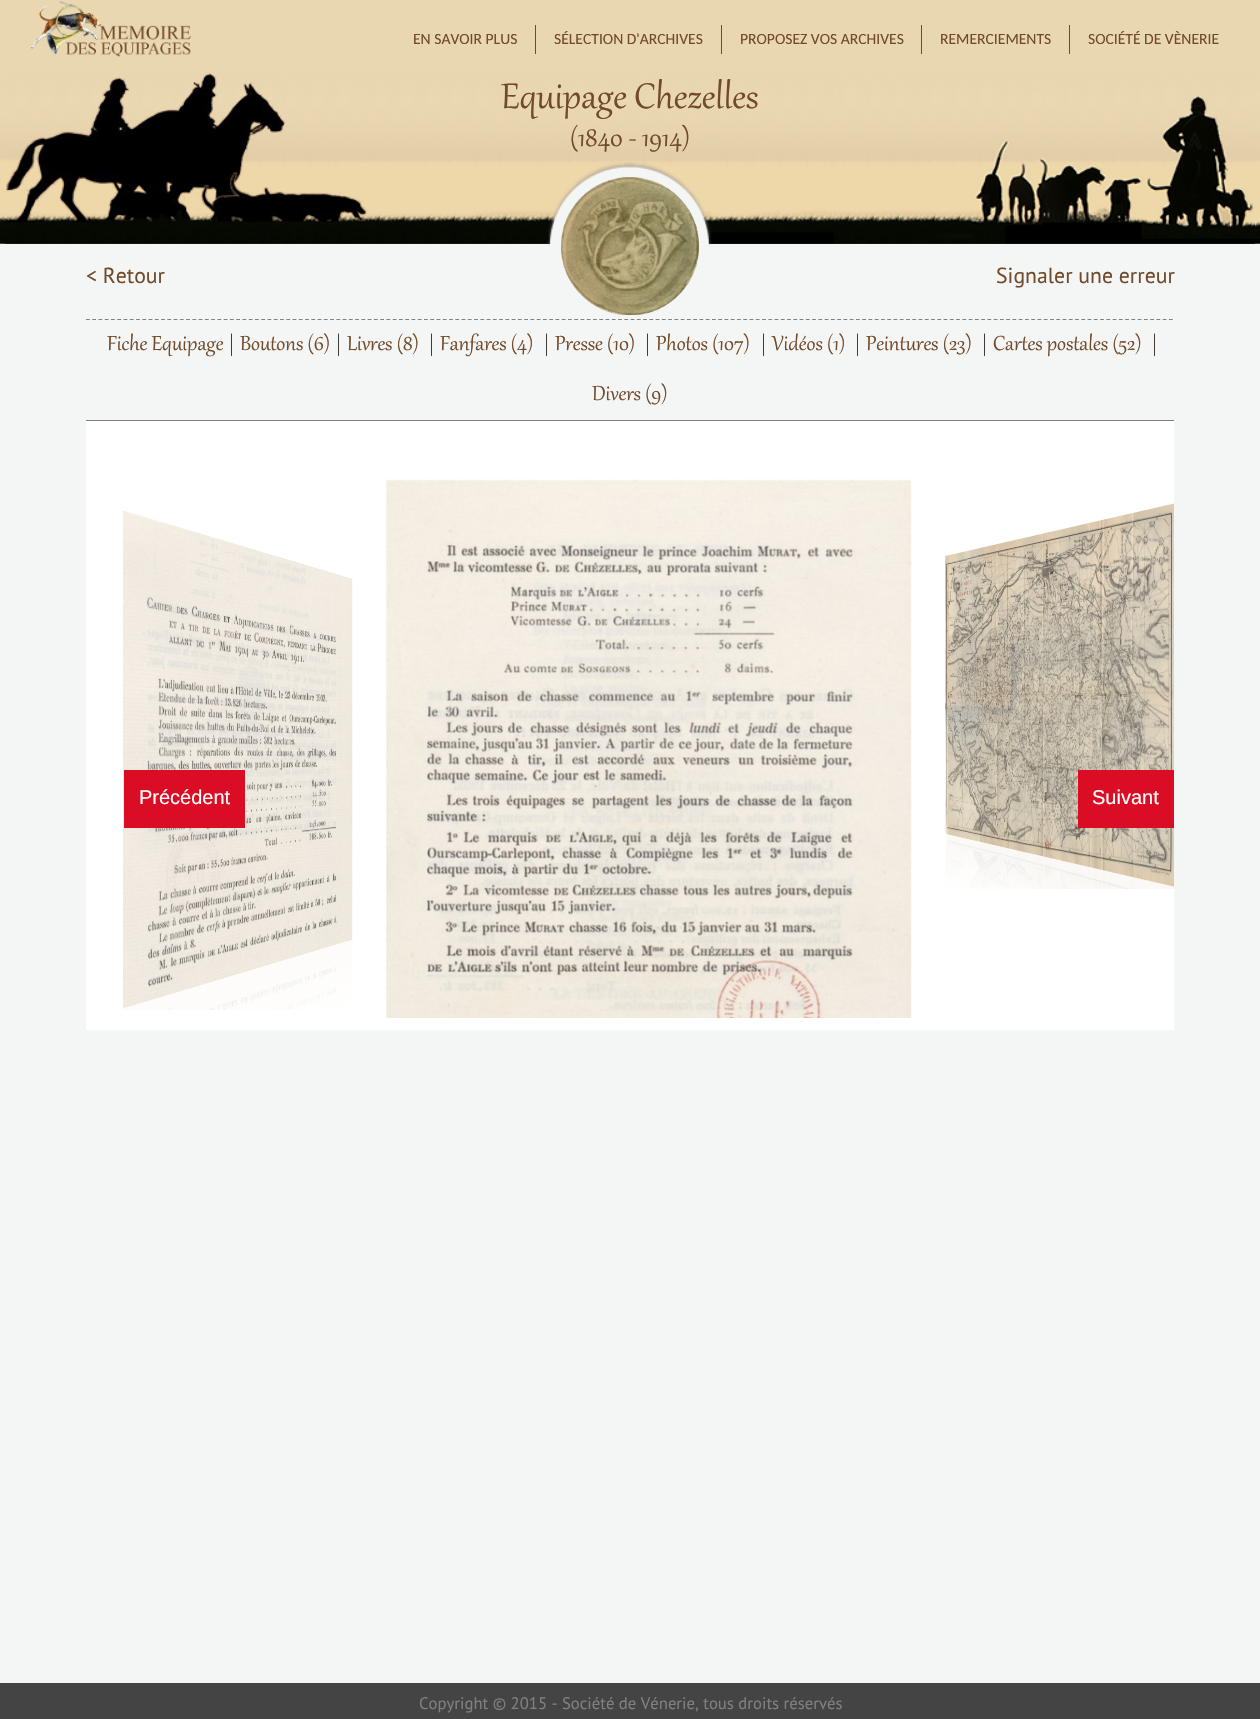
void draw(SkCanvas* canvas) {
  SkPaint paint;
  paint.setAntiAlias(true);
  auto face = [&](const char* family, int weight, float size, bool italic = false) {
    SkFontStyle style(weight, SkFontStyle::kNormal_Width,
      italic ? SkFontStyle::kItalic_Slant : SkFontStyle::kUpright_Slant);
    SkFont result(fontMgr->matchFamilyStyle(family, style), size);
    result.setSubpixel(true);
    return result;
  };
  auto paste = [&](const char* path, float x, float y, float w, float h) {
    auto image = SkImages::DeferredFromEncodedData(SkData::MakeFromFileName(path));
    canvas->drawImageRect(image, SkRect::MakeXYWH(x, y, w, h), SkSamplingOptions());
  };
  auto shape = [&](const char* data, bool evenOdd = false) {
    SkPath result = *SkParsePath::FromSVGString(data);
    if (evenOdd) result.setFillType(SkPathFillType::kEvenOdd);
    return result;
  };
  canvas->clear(0xfff4f5f5);
  paste("img/1.png", 0, 0, 630, 244);
  paste("img/2.png", 630, 0, 630, 244);
  paste("img/3.png", 31, 1, 160, 56);
  {
    const struct { float x, y, w, h; SkColor color; } items[] = {
      {535, 25, 1, 29, 0xff714a29},
      {721, 25, 1, 29, 0xff714a29},
      {921, 25, 1, 29, 0xff714a29},
      {1069, 25, 1, 29, 0xff714a29},
    };
    for (auto [x, y, w, h, color] : items) {
      paint.setColor(color);
      canvas->drawRect(SkRect::MakeXYWH(x, y, w, h), paint);
    }
  }
  paste("img/4.png", 5, 69, 1250, 175);
  paste("img/5.png", 547, 162, 165, 85);
  paste("img/6.png", 561, 177, 138, 133);
  paste("img/9.png", 613, 312, 34, 1);
  paste("img/7.png", 561, 177, 138, 138);
  paste("img/8.png", 561, 177, 138, 138);
  paint.setStroke(true);
  paint.setStrokeWidth(1.2f);
  paint.setColor(0xff808080);
  paint.setPathEffect(SkDashPathEffect::Make({{3.75f, 2.51f}}, 0));
  canvas->drawPath(shape("M86 319.5H1174"), paint);
  paint.setPathEffect(nullptr);
  paint.setStroke(false);
  canvas->drawRect(SkRect::MakeXYWH(86, 420, 1088, 1), paint);
  paint.setColor(0xffffffff);
  canvas->drawRect(SkRect::MakeXYWH(86, 421, 1088, 609), paint);
  paste("img/10.png", 123, 510, 230, 500);
  paste("img/11.png", 386, 479, 526, 539);
  paste("img/12.png", 945, 503, 229, 386);
  {
    const struct { float x, y, w, h; SkColor color; } items[] = {
      {124, 770, 121, 58, 0xffda0d25},
      {1078, 770, 96, 58, 0xffda0d25},
      {0, 1683, 1260, 36, 0xff444444},
    };
    for (auto [x, y, w, h, color] : items) {
      paint.setColor(color);
      canvas->drawRect(SkRect::MakeXYWH(x, y, w, h), paint);
    }
  }
  auto f0 = face("Carlito", 400, 15.6f);
  paint.setColor(0xff714a29);
  {
    const struct { const char* s; float x, y; } items[] = {
      {"EN SAVOIR PLUS", 413, 44},
      {"SÉLECTION D'ARCHIVES", 554, 44},
      {"PROPOSEZ VOS ARCHIVES", 740, 44},
      {"REMERCIEMENTS", 940, 44},
      {"SOCIÉTÉ DE VÈNERIE", 1088, 44},
    };
    for (auto [s, x, y] : items) {
      canvas->drawString(s, x, y, f0, paint);
    }
  }
  auto f1 = face("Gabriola", 400, 43.75f);
  canvas->drawString("Equipage Chezelles", 501, 108, f1, paint);
  auto f2 = face("Gabriola", 400, 32);
  canvas->drawString("(1840 - 1914)", 570, 146, f2, paint);
  auto f3 = face("PT Sans", 400, 21.75f);
  canvas->drawString("< Retour", 86, 283, f3, paint);
  canvas->drawString("Signaler une erreur", 996, 283, f3, paint);
  auto f4 = face("Gabriola", 400, 25);
  canvas->drawString("Fiche Equipage", 107, 350, f4, paint);
  paint.setColor(0xff37302a);
  canvas->drawString("|", 228, 350, f4, paint);
  paint.setColor(0xff714a29);
  canvas->drawString("Boutons (6)", 240, 350, f4, paint);
  paint.setColor(0xff37302a);
  canvas->drawString("|", 335, 350, f4, paint);
  paint.setColor(0xff714a29);
  canvas->drawString("Livres (8)", 347, 350, f4, paint);
  paint.setColor(0xff37302a);
  canvas->drawString("|", 428, 350, f4, paint);
  paint.setColor(0xff714a29);
  canvas->drawString("Fanfares (4)", 440, 350, f4, paint);
  paint.setColor(0xff37302a);
  canvas->drawString("|", 543, 350, f4, paint);
  paint.setColor(0xff714a29);
  canvas->drawString("Presse (10)", 555, 350, f4, paint);
  paint.setColor(0xff37302a);
  canvas->drawString("|", 644, 350, f4, paint);
  paint.setColor(0xff714a29);
  canvas->drawString("Photos (107)", 656, 350, f4, paint);
  paint.setColor(0xff37302a);
  canvas->drawString("|", 760, 350, f4, paint);
  paint.setColor(0xff714a29);
  canvas->drawString("Vidéos (1)", 772, 350, f4, paint);
  paint.setColor(0xff37302a);
  canvas->drawString("|", 854, 350, f4, paint);
  paint.setColor(0xff714a29);
  canvas->drawString("Peintures (23)", 866, 350, f4, paint);
  paint.setColor(0xff37302a);
  canvas->drawString("|", 981, 350, f4, paint);
  paint.setColor(0xff714a29);
  canvas->drawString("Cartes postales (52)", 993, 350, f4, paint);
  paint.setColor(0xff37302a);
  canvas->drawString("|", 1151, 350, f4, paint);
  paint.setColor(0xff714a29);
  canvas->drawString("Divers (9)", 592, 400, f4, paint);
  auto f5 = face("Liberation Sans", 400, 20);
  paint.setColor(0xffffffff);
  canvas->drawString("Précédent", 139, 804, f5, paint);
  canvas->drawString("Suivant", 1092, 804, f5, paint);
  auto f6 = face("PT Sans", 400, 16.7f);
  paint.setColor(0xff808080);
  canvas->drawString("Copyright © 2015 - Société de Vénerie, tous droits réservés", 419, 1709, f6, paint);
}
